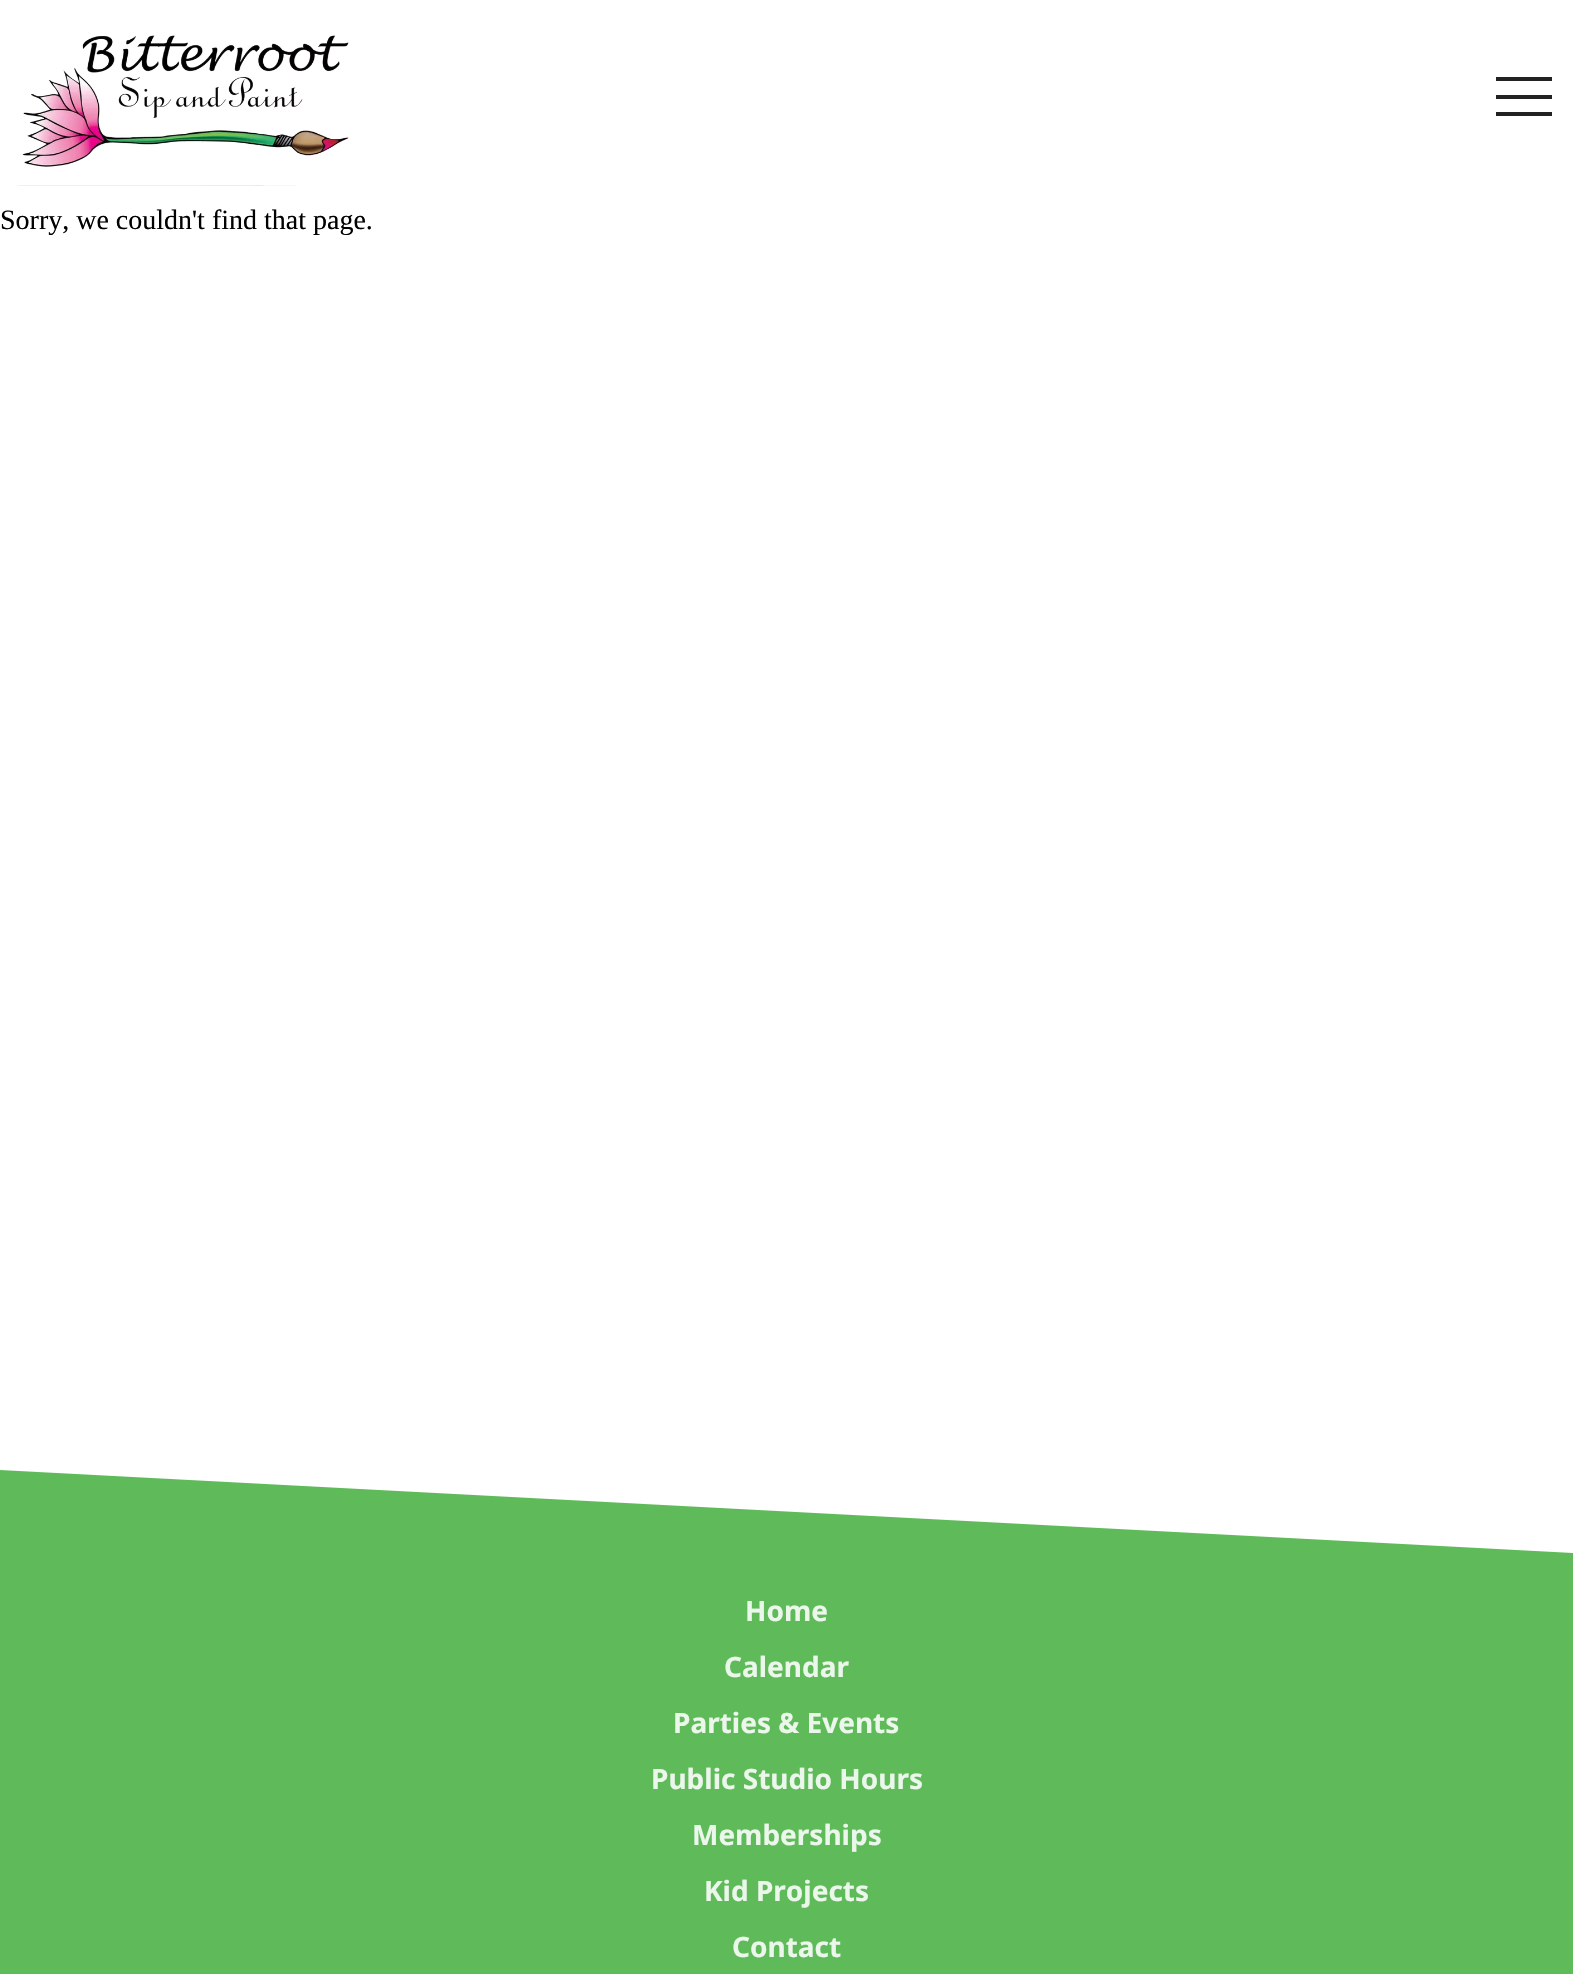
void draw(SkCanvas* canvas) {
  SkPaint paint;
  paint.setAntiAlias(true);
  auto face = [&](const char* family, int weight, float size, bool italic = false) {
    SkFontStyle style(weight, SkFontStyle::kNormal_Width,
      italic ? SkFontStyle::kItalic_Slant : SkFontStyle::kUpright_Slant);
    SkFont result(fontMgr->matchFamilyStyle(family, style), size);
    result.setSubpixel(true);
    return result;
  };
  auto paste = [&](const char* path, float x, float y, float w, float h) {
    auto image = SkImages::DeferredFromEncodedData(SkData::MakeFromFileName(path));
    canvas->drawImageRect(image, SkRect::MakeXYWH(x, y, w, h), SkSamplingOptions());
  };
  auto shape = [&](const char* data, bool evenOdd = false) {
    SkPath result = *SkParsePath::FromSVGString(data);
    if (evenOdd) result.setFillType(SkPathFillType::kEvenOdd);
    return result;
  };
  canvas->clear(0xffffffff);
  paste("img/1.png", 17, 35, 332, 151);
  {
    const struct { float x, y, w, h; SkColor color; } items[] = {
      {1496, 95, 56, 4, 0xff222222},
      {1496, 77, 56, 4, 0xff222222},
      {1496, 112, 56, 4, 0xff222222},
    };
    for (auto [x, y, w, h, color] : items) {
      paint.setColor(color);
      canvas->drawRect(SkRect::MakeXYWH(x, y, w, h), paint);
    }
  }
  paint.setColor(0xff5fbb5a);
  canvas->drawPath(shape("M0 1470V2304H1573V1553Z"), paint);
  auto f0 = face("Liberation Serif", 400, 28);
  paint.setColor(0xff000000);
  canvas->drawString("Sorry, we couldn't find that page.", 0, 229, f0, paint);
  auto f1 = face("Noto Sans", 700, 28);
  paint.setColor(0xffecf7eb);
  {
    const struct { const char* s; float x, y; } items[] = {
      {"Home", 745, 1621},
      {"Calendar", 724, 1677},
      {"Parties & Events", 673, 1733},
      {"Public Studio Hours", 651, 1789},
      {"Memberships", 692, 1845},
      {"Kid Projects", 704, 1901},
      {"Contact", 732, 1957},
    };
    for (auto [s, x, y] : items) {
      canvas->drawString(s, x, y, f1, paint);
    }
  }
}
